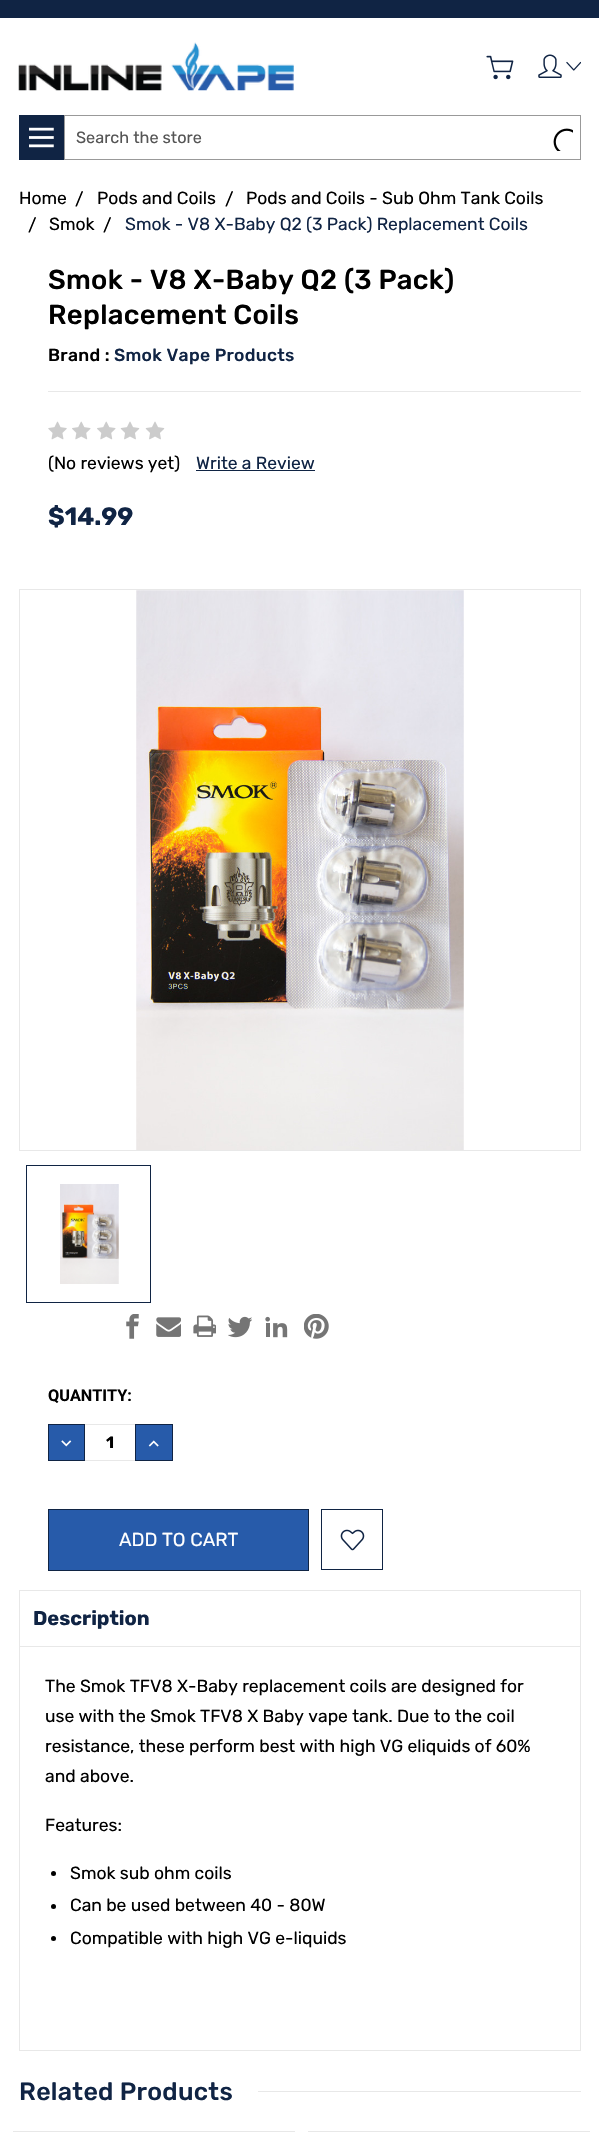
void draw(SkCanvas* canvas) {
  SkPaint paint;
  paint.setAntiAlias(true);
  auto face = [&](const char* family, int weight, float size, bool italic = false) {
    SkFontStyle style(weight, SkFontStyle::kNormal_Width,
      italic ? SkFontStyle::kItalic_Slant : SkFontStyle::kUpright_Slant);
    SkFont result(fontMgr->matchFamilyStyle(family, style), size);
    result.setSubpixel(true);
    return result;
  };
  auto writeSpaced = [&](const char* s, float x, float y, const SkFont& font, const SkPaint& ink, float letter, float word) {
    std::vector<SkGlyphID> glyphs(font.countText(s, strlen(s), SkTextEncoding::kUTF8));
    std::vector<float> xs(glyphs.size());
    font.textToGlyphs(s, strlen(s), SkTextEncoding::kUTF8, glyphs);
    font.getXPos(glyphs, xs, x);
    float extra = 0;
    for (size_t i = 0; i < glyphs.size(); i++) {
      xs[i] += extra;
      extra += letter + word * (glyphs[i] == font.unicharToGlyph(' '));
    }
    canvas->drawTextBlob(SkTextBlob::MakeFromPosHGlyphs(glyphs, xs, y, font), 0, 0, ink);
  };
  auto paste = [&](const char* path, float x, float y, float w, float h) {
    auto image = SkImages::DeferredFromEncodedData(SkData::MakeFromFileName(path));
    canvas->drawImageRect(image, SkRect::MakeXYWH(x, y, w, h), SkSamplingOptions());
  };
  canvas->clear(0xffffffff);
  paint.setColor(0xff102444);
  canvas->drawRect(SkRect::MakeXYWH(0, 0, 599, 18), paint);
  paste("img/1.png", 18, 42, 276, 49);
  paste("img/2.png", 486, 55, 28, 25);
  paste("img/3.png", 538, 54, 24, 24);
  paste("img/4.png", 566, 61, 15, 10);
  canvas->drawRect(SkRect::MakeXYWH(19, 115, 45, 45), paint);
  paste("img/5.png", 29, 127, 25, 21);
  paint.setStroke(true);
  paint.setStrokeWidth(1);
  paint.setColor(0xff999999);
  canvas->drawRect(SkRect::MakeXYWH(64.5f, 115.5f, 516, 44), paint);
  paste("img/6.png", 553, 128, 20, 23);
  paint.setStroke(false);
  paint.setColor(0xffe8e8e8);
  canvas->drawRect(SkRect::MakeXYWH(48, 391, 533, 1), paint);
  paste("img/7.png", 48, 421, 19, 19);
  paste("img/8.png", 72, 421, 19, 19);
  paste("img/8.png", 97, 421, 19, 19);
  paste("img/9.png", 120, 421, 20, 19);
  paste("img/9.png", 145, 421, 20, 19);
  paint.setColor(0xff102444);
  canvas->drawRect(SkRect::MakeXYWH(196, 470, 119, 1), paint);
  paint.setStroke(true);
  paint.setColor(0xffe8e8e8);
  canvas->drawRect(SkRect::MakeXYWH(19.5f, 589.5f, 561, 561), paint);
  paste("img/10.png", 136, 590, 328, 560);
  paint.setColor(0xff102444);
  canvas->drawRect(SkRect::MakeXYWH(26.5f, 1165.5f, 124, 137), paint);
  paste("img/11.png", 60, 1184, 59, 100);
  paste("img/12.png", 126, 1314, 13, 25);
  paste("img/13.png", 156, 1317, 25, 20);
  paste("img/14.png", 193, 1315, 23, 22);
  paste("img/15.png", 228, 1316, 24, 22);
  paste("img/16.png", 265, 1316, 23, 22);
  paste("img/17.png", 304, 1314, 25, 25);
  paint.setStroke(false);
  paint.setColor(0xff275baa);
  canvas->drawRect(SkRect::MakeXYWH(48.5f, 1424.5f, 36, 36), paint);
  paint.setStroke(true);
  paint.setColor(0xff102444);
  canvas->drawRect(SkRect::MakeXYWH(48.5f, 1424.5f, 36, 36), paint);
  paste("img/18.png", 61, 1440, 11, 7);
  paint.setStroke(false);
  paint.setColor(0xffe8e8e8);
  canvas->drawRect(SkRect::MakeXYWH(85, 1424, 50, 1), paint);
  canvas->drawRect(SkRect::MakeXYWH(85, 1460, 50, 1), paint);
  paint.setColor(0xff275baa);
  canvas->drawRect(SkRect::MakeXYWH(135.5f, 1424.5f, 37, 36), paint);
  paint.setStroke(true);
  paint.setColor(0xff102444);
  canvas->drawRect(SkRect::MakeXYWH(135.5f, 1424.5f, 37, 36), paint);
  paste("img/19.png", 148, 1440, 11, 7);
  paint.setStroke(false);
  paint.setColor(0xff275baa);
  canvas->drawRect(SkRect::MakeXYWH(48.5f, 1509.5f, 260, 61), paint);
  paint.setStroke(true);
  paint.setColor(0xff102444);
  canvas->drawRect(SkRect::MakeXYWH(48.5f, 1509.5f, 260, 61), paint);
  canvas->drawRect(SkRect::MakeXYWH(321.5f, 1509.5f, 61, 60), paint);
  paste("img/20.png", 340, 1529, 25, 22);
  paint.setStroke(false);
  {
    const struct { float x, y, w, h; SkColor color; } items[] = {
      {19, 1590, 562, 1, 0xffe8e8e8},
      {580, 1590, 1, 461, 0xffe8e8e8},
      {19, 1590, 1, 461, 0xffe8e8e8},
      {20, 1646, 560, 1, 0xffe8e8e8},
      {20, 2050, 560, 1, 0xffe8e8e8},
    };
    for (auto [x, y, w, h, color] : items) {
      paint.setColor(color);
      canvas->drawRect(SkRect::MakeXYWH(x, y, w, h), paint);
    }
  }
  paint.setColor(0xff000000);
  canvas->drawCircle(53.5f, 1873.5f, 2.5f, paint);
  canvas->drawCircle(53.5f, 1906.5f, 2.5f, paint);
  canvas->drawCircle(53.5f, 1938.5f, 2.5f, paint);
  paint.setColor(0xffe8e8e8);
  canvas->drawRect(SkRect::MakeXYWH(258, 2091, 323, 1), paint);
  paint.setStroke(true);
  canvas->drawRect(SkRect::MakeXYWH(13.5f, 2131.5f, 281, 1), paint);
  canvas->drawRect(SkRect::MakeXYWH(308.5f, 2131.5f, 281, 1), paint);
  auto f0 = face("Rubik", 400, 16.25f);
  paint.setStroke(false);
  paint.setColor(0xff555555);
  canvas->drawString("Search the store", 76, 143, f0, paint);
  auto f1 = face("Rubik", 400, 17.5f);
  paint.setColor(0xff000000);
  {
    const struct { const char* s; float x, y; } items[] = {
      {"Home", 19, 204},
      {"/", 75, 205},
      {"Pods and Coils", 97, 204},
      {"/", 225, 205},
      {"Pods and Coils - Sub Ohm Tank Coils", 246, 204},
      {"/", 28, 231},
      {"Smok", 49, 230},
      {"/", 103, 231},
    };
    for (auto [s, x, y] : items) {
      canvas->drawString(s, x, y, f1, paint);
    }
  }
  paint.setColor(0xff102444);
  canvas->drawString("Smok - V8 X-Baby Q2 (3 Pack) Replacement Coils", 125, 230, f1, paint);
  auto f2 = face("Rubik", 500, 27.5f);
  paint.setColor(0xff000000);
  writeSpaced("Smok - V8 X-Baby Q2 (3 Pack)", 48, 289, f2, paint, 0.3f, 0);
  writeSpaced("Replacement Coils", 48, 324, f2, paint, 0.3f, 0);
  auto f3 = face("Rubik", 500, 17.5f);
  writeSpaced("Brand :", 48, 361, f3, paint, 0.3f, 0);
  paint.setColor(0xff102444);
  writeSpaced("Smok Vape Products", 114, 361, f3, paint, 0.3f, 0);
  paint.setColor(0xff000000);
  canvas->drawString("(No reviews yet)", 48, 469, f1, paint);
  paint.setColor(0xff102444);
  canvas->drawString("Write a Review", 196, 469, f1, paint);
  auto f4 = face("Rubik", 700, 25);
  canvas->drawString("$14.99", 48, 525, f4, paint);
  auto f5 = face("Roboto", 700, 16.25f);
  paint.setColor(0xff000000);
  canvas->drawString("QUANTITY:", 48, 1401, f5, paint);
  auto f6 = face("Rubik", 700, 16.25f);
  canvas->drawString("1", 106, 1448, f6, paint);
  auto f7 = face("Rubik", 400, 18.75f);
  paint.setColor(0xffffffff);
  canvas->drawString("ADD TO CART", 119, 1546, f7, paint);
  auto f8 = face("Rubik", 700, 20);
  paint.setColor(0xff102444);
  canvas->drawString("Description", 33, 1625, f8, paint);
  paint.setColor(0xff000000);
  {
    const struct { const char* s; float x, y; } items[] = {
      {"The Smok TFV8 X-Baby replacement coils are designed for", 45, 1692},
      {"use with the Smok TFV8 X Baby vape tank. Due to the coil", 45, 1722},
      {"resistance, these perform best with high VG eliquids of 60%", 45, 1752},
      {"and above.", 45, 1782},
      {"Features:", 45, 1831},
      {"Smok sub ohm coils", 70, 1879},
      {"Can be used between 40 - 80W", 70, 1911},
      {"Compatible with high VG e-liquids", 70, 1944},
    };
    for (auto [s, x, y] : items) {
      canvas->drawString(s, x, y, f1, paint);
    }
  }
  auto f9 = face("Rubik", 500, 25);
  paint.setColor(0xff102444);
  writeSpaced("Related Products", 19, 2100, f9, paint, 0.3f, 0);
}
